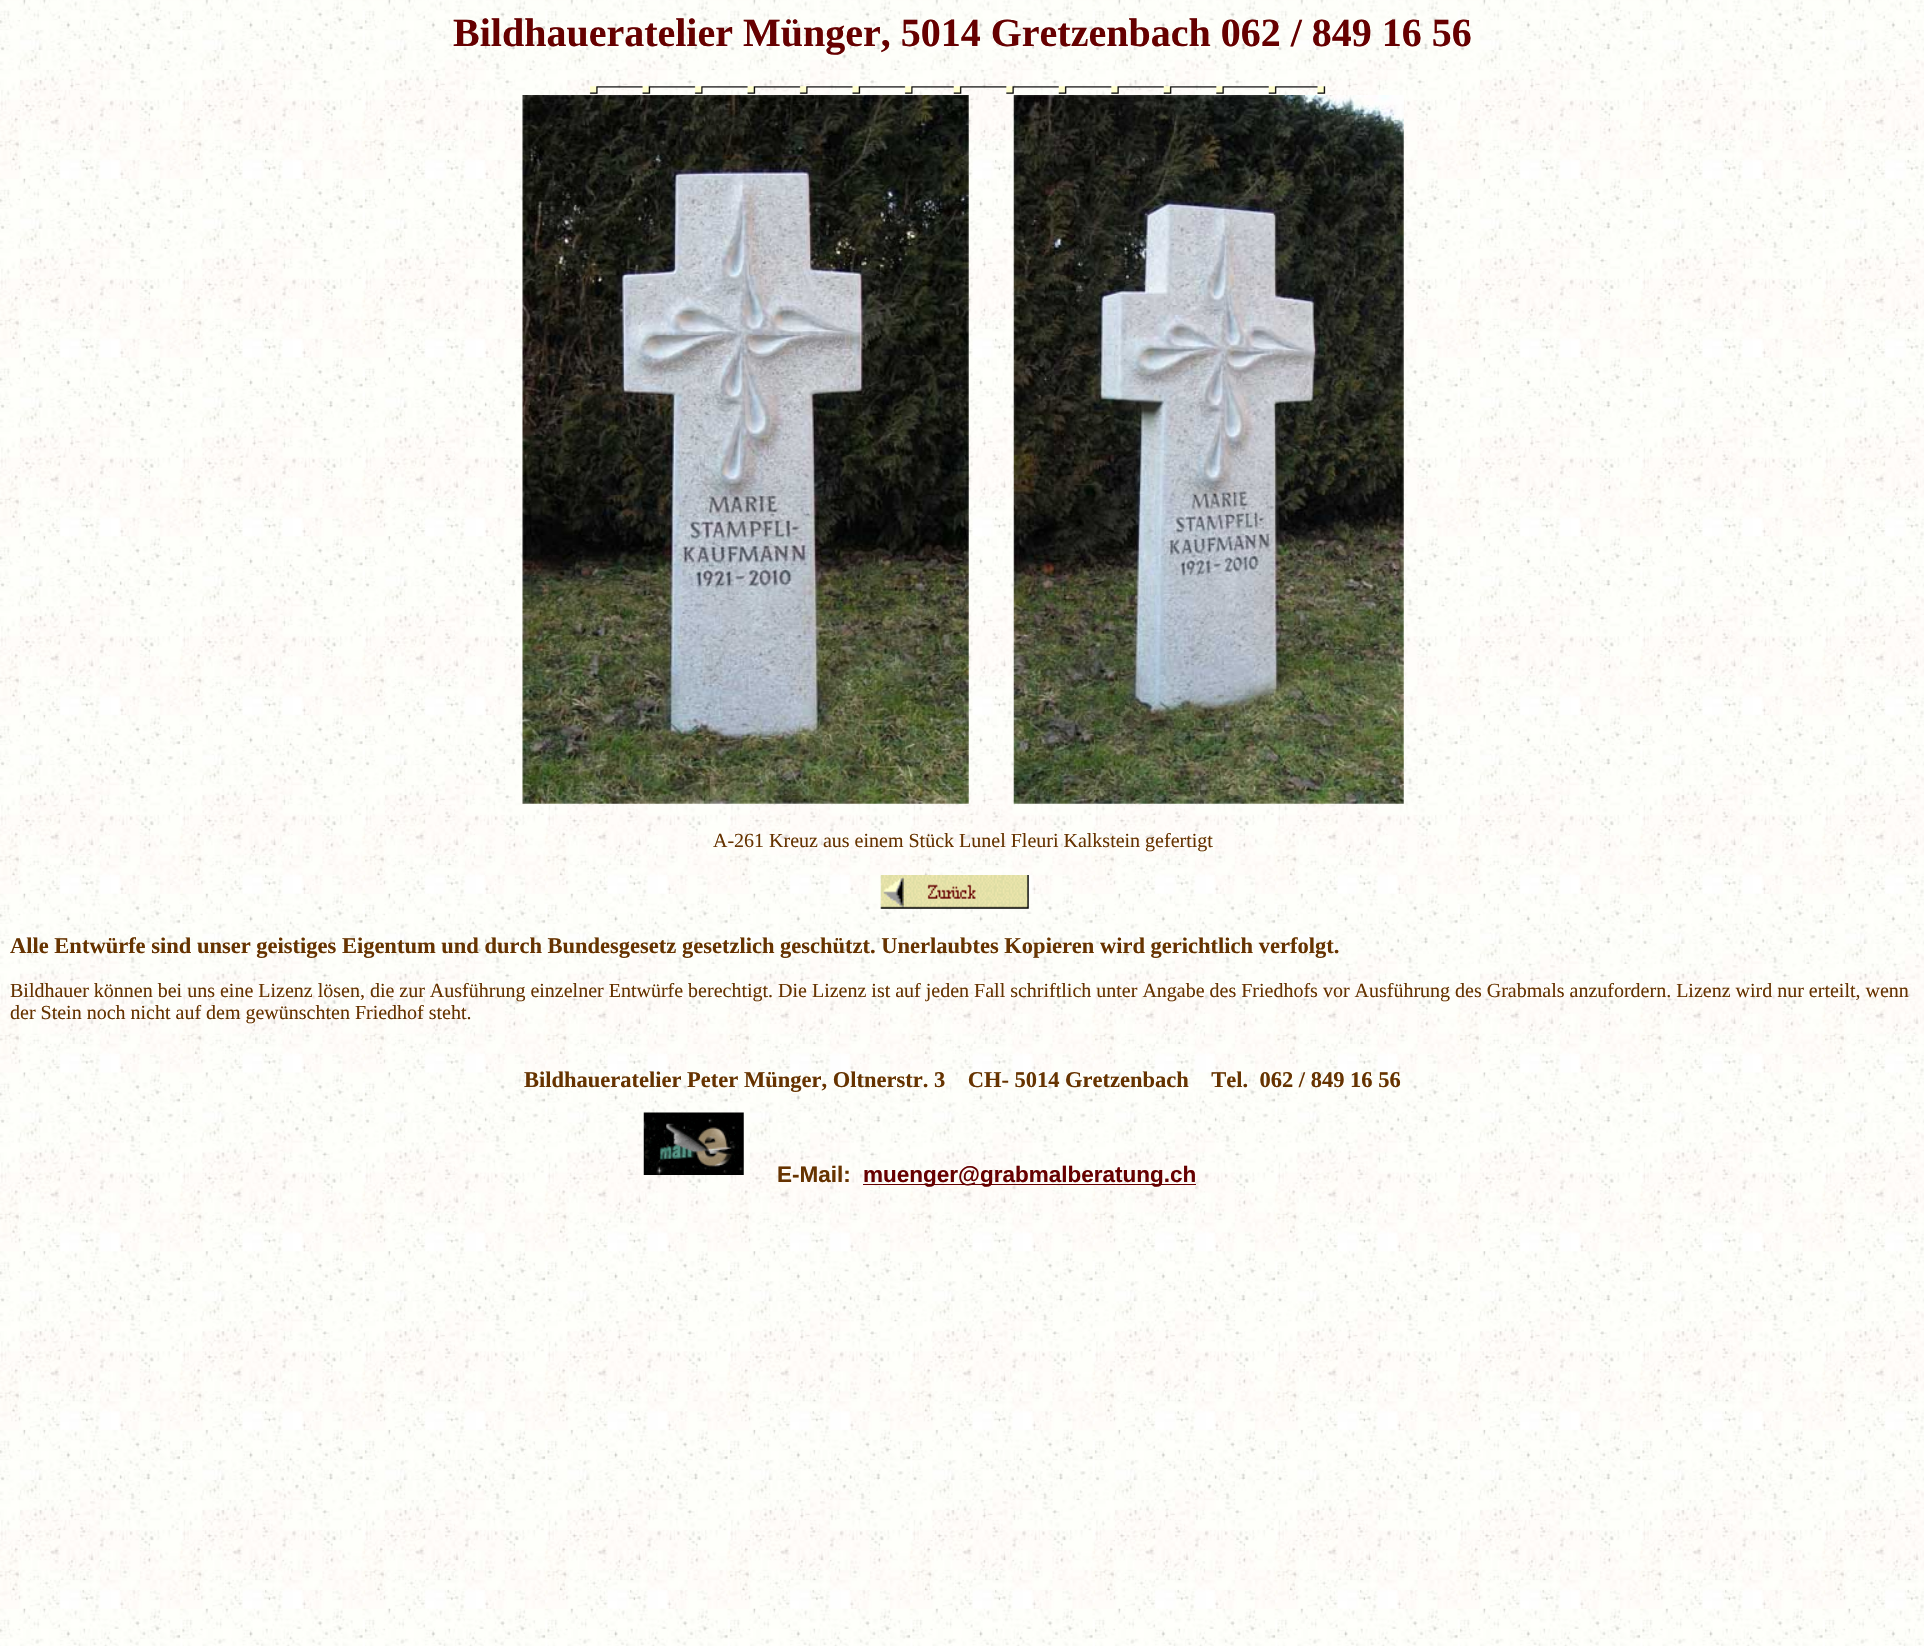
void draw(SkCanvas* canvas) {
  SkPaint paint;
  paint.setAntiAlias(true);
  auto face = [&](const char* family, int weight, float size, bool italic = false) {
    SkFontStyle style(weight, SkFontStyle::kNormal_Width,
      italic ? SkFontStyle::kItalic_Slant : SkFontStyle::kUpright_Slant);
    SkFont result(fontMgr->matchFamilyStyle(family, style), size);
    result.setSubpixel(true);
    return result;
  };
  auto paste = [&](const char* path, float x, float y, float w, float h) {
    auto image = SkImages::DeferredFromEncodedData(SkData::MakeFromFileName(path));
    canvas->drawImageRect(image, SkRect::MakeXYWH(x, y, w, h), SkSamplingOptions());
  };
  canvas->clear(0xffffffff);
  paste("img/1.png", 0, 0, 1924, 1646);
  paste("img/2.png", 589, 86, 737, 8);
  paste("img/3.png", 522, 95, 447, 709);
  paste("img/4.png", 1013, 95, 391, 709);
  paste("img/5.png", 880, 875, 149, 34);
  paste("img/6.png", 643, 1112, 101, 63);
  paint.setColor(0xff660000);
  canvas->drawRect(SkRect::MakeXYWH(863, 1184, 333, 1), paint);
  auto f0 = face("Liberation Serif", 700, 40);
  canvas->drawString("Bildhaueratelier Münger, 5014 Gretzenbach 062 / 849 16 56", 453, 46, f0, paint);
  auto f1 = face("Liberation Serif", 400, 20);
  paint.setColor(0xff663300);
  canvas->drawString("A-261 Kreuz aus einem Stück Lunel Fleuri Kalkstein gefertigt", 713, 847, f1, paint);
  auto f2 = face("Liberation Serif", 700, 22.5f);
  canvas->drawString("Alle Entwürfe sind unser geistiges Eigentum und durch Bundesgesetz gesetzlich geschützt. Unerlaubtes Kopieren wird gerichtlich verfolgt.", 10, 953, f2, paint);
  canvas->drawString("Bildhauer können bei uns eine Lizenz lösen, die zur Ausführung einzelner Entwürfe berechtigt. Die Lizenz ist auf jeden Fall schriftlich unter Angabe des Friedhofs vor Ausführung des Grabmals anzufordern. Lizenz wird nur erteilt, wenn", 10, 997, f1, paint);
  canvas->drawString("der Stein noch nicht auf dem gewünschten Friedhof steht.", 10, 1019, f1, paint);
  canvas->drawString("Bildhaueratelier Peter Münger, Oltnerstr. 3    CH- 5014 Gretzenbach    Tel.  062 / 849 16 56", 524, 1087, f2, paint);
  auto f3 = face("Liberation Sans", 700, 22.5f);
  canvas->drawString("E-Mail:", 777, 1182, f3, paint);
  paint.setColor(0xff660000);
  canvas->drawString("muenger@grabmalberatung.ch", 863, 1182, f3, paint);
}
